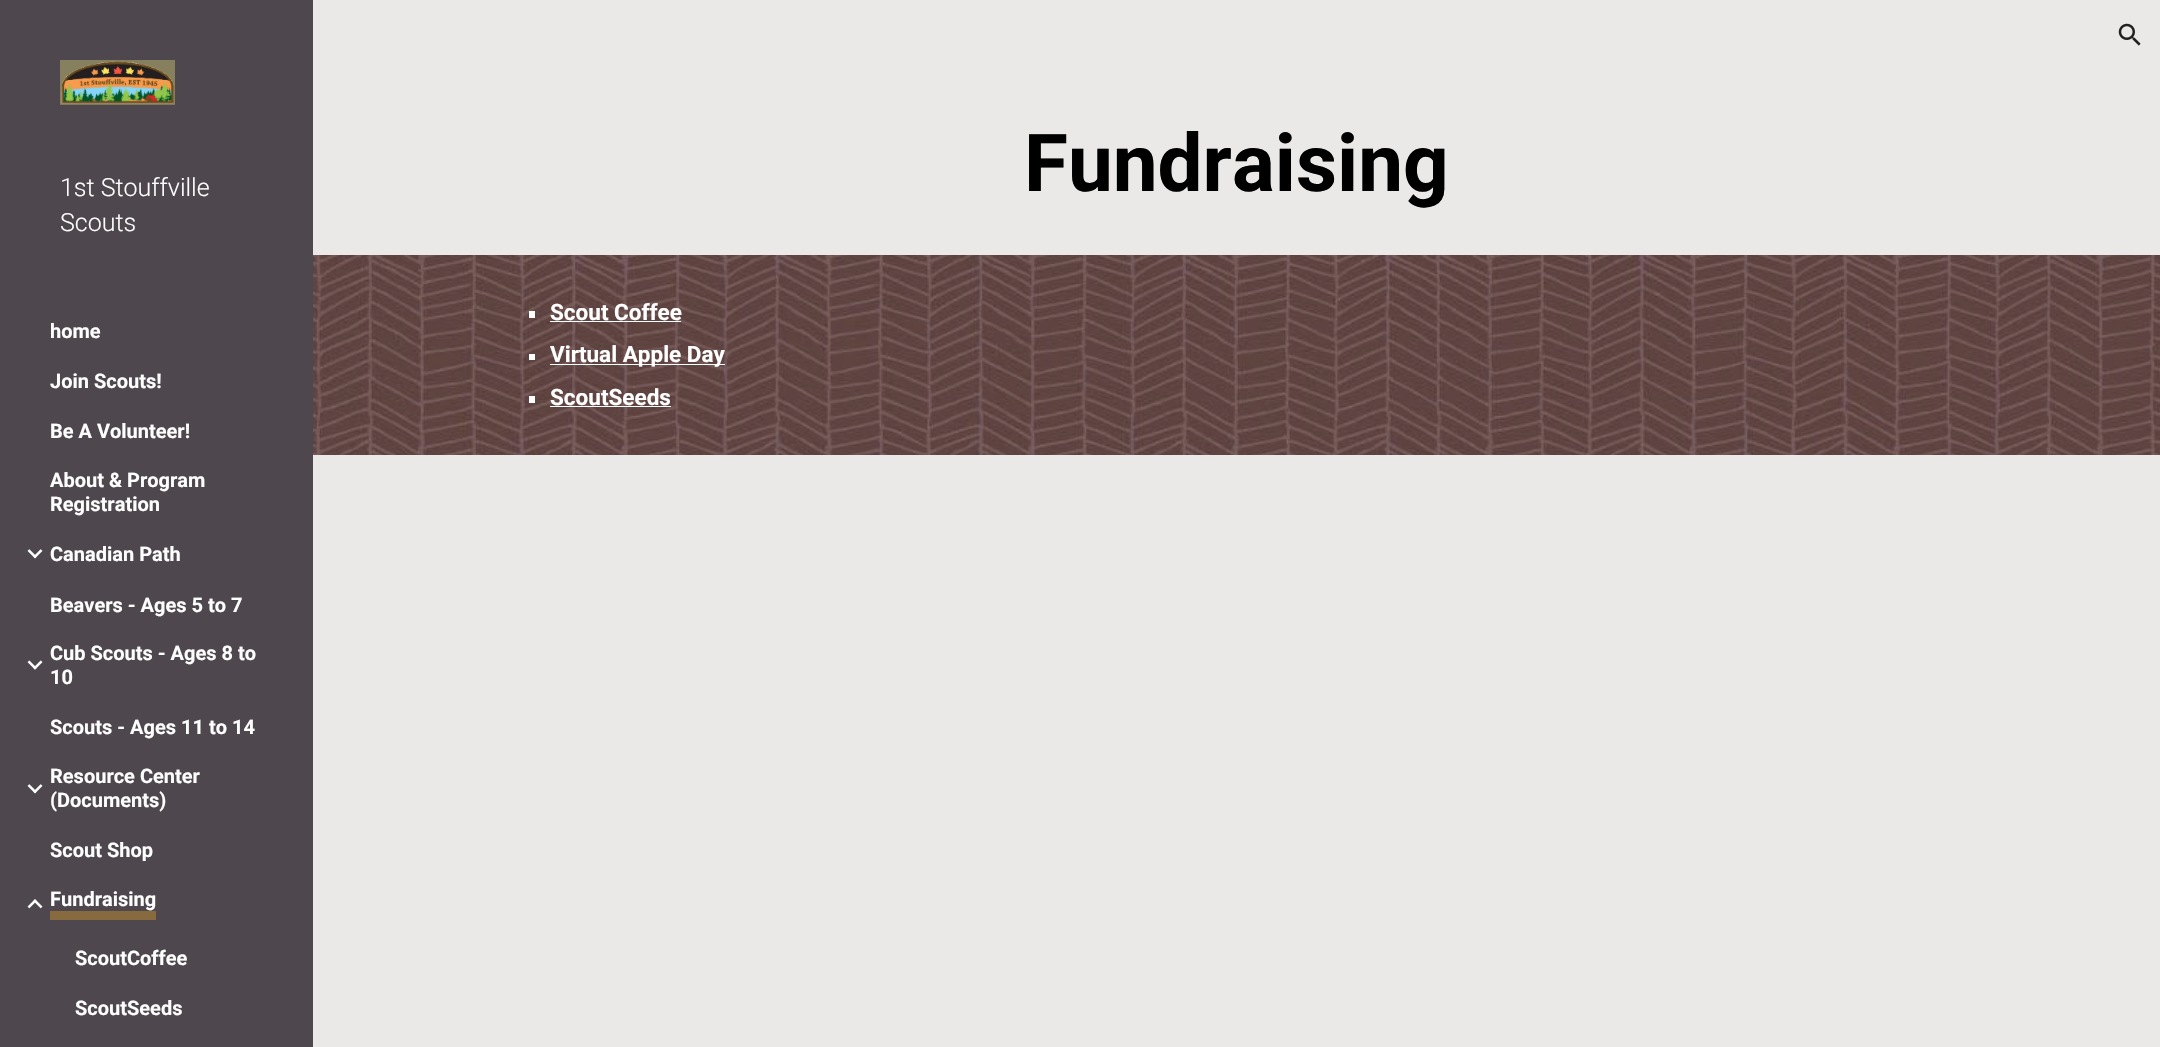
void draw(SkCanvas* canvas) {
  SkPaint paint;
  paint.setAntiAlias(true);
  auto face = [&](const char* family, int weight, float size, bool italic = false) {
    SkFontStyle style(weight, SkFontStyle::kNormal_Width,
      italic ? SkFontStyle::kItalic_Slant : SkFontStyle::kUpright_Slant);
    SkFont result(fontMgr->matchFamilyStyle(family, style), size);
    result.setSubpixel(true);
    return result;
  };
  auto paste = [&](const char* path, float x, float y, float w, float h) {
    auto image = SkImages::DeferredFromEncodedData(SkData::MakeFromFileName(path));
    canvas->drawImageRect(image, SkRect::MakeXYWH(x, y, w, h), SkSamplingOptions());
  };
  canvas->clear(0xffebe9e7);
  paste("img/1.png", 2118, 23, 23, 23);
  paint.setColor(0xff4f474e);
  canvas->drawRect(SkRect::MakeXYWH(0, 0, 313, 1047), paint);
  paste("img/2.png", 60, 60, 115, 45);
  paste("img/3.png", 27, 549, 16, 10);
  paste("img/4.png", 27, 660, 16, 10);
  paste("img/3.png", 27, 784, 16, 10);
  paste("img/5.png", 27, 899, 16, 10);
  paint.setColor(0xff876b3e);
  canvas->drawRect(SkRect::MakeXYWH(50, 911, 106, 9), paint);
  paste("img/6.png", 313, 255, 1847, 200);
  {
    const struct { float x, y, w, h; SkColor color; } items[] = {
      {529, 311, 6, 7, 0xffffffff},
      {550, 321, 131, 1, 0xffffffff},
      {529, 354, 6, 6, 0xffffffff},
      {550, 364, 175, 1, 0xffffffff},
      {529, 396, 6, 7, 0xffffffff},
      {550, 406, 121, 1, 0xffffffff},
    };
    for (auto [x, y, w, h, color] : items) {
      paint.setColor(color);
      canvas->drawRect(SkRect::MakeXYWH(x, y, w, h), paint);
    }
  }
  auto f0 = face("Roboto", 300, 25);
  canvas->drawString("1st Stouffville", 60, 196, f0, paint);
  canvas->drawString("Scouts", 60, 231, f0, paint);
  auto f1 = face("Roboto", 700, 20);
  {
    const struct { const char* s; float x, y; } items[] = {
      {"home", 50, 338},
      {"Join Scouts!", 50, 388},
      {"Be A Volunteer!", 50, 438},
      {"About & Program", 50, 487},
      {"Registration", 50, 511},
      {"Canadian Path", 50, 561},
      {"Beavers - Ages 5 to 7", 50, 612},
      {"Cub Scouts - Ages 8 to", 50, 660},
      {"10", 50, 684},
      {"Scouts - Ages 11 to 14", 50, 734},
      {"Resource Center", 50, 783},
      {"(Documents)", 50, 807},
      {"Scout Shop", 50, 857},
      {"Fundraising", 50, 906},
      {"ScoutCoffee", 75, 965},
      {"ScoutSeeds", 75, 1015},
    };
    for (auto [s, x, y] : items) {
      canvas->drawString(s, x, y, f1, paint);
    }
  }
  auto f2 = face("Roboto", 700, 80);
  paint.setColor(0xff000000);
  canvas->drawString("Fundraising", 1024, 191, f2, paint);
  auto f3 = face("Roboto", 700, 22.5f);
  paint.setColor(0xffffffff);
  {
    const struct { const char* s; float x, y; } items[] = {
      {"Scout Coffee", 550, 320},
      {"Virtual Apple Day", 550, 362},
      {"ScoutSeeds", 550, 405},
    };
    for (auto [s, x, y] : items) {
      canvas->drawString(s, x, y, f3, paint);
    }
  }
}
